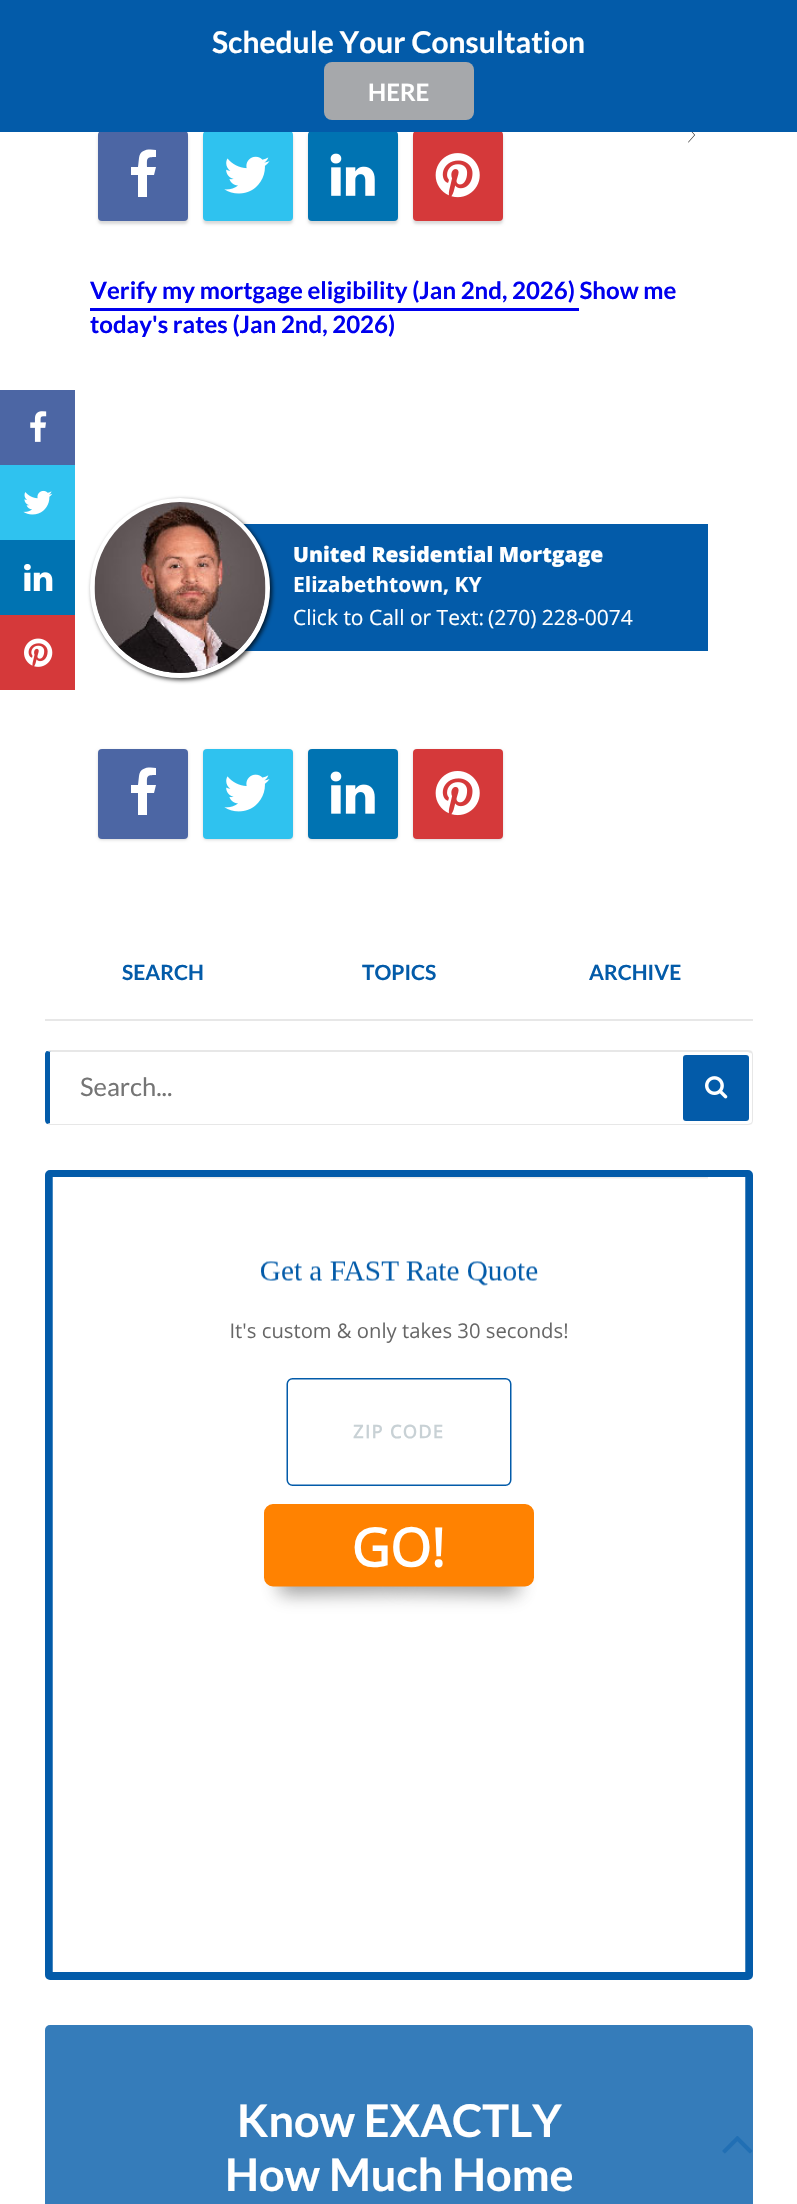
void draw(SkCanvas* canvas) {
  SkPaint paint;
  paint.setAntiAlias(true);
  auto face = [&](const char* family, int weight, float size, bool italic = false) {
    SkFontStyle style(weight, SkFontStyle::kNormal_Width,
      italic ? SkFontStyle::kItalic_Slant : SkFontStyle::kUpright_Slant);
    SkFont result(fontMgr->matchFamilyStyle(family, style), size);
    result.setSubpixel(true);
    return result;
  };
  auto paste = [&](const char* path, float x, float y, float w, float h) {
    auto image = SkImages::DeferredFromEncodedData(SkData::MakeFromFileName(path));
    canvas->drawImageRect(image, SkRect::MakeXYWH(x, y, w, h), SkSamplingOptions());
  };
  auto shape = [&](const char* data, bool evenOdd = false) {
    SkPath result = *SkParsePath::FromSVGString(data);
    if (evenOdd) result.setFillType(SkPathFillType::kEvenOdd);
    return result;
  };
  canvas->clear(0xffffffff);
  paint.setColor(0x26000000);
  paint.setMaskFilter(SkMaskFilter::MakeBlur(kNormal_SkBlurStyle, 1.5f));
  canvas->drawRoundRect(SkRect::MakeXYWH(98, 134, 90, 90), 4, 4, paint);
  paint.setMaskFilter(nullptr);
  paint.setColor(0xff4c66a4);
  canvas->drawRoundRect(SkRect::MakeXYWH(98, 131, 90, 90), 4, 4, paint);
  paint.setColor(0x26000000);
  paint.setMaskFilter(SkMaskFilter::MakeBlur(kNormal_SkBlurStyle, 1.5f));
  canvas->drawRoundRect(SkRect::MakeXYWH(203, 134, 90, 90), 4, 4, paint);
  paint.setMaskFilter(nullptr);
  paint.setColor(0xff2fc2ef);
  canvas->drawRoundRect(SkRect::MakeXYWH(203, 131, 90, 90), 4, 4, paint);
  paint.setColor(0x26000000);
  paint.setMaskFilter(SkMaskFilter::MakeBlur(kNormal_SkBlurStyle, 1.5f));
  canvas->drawRoundRect(SkRect::MakeXYWH(308, 134, 90, 90), 4, 4, paint);
  paint.setMaskFilter(nullptr);
  paint.setColor(0xff0073b2);
  canvas->drawRoundRect(SkRect::MakeXYWH(308, 131, 90, 90), 4, 4, paint);
  paint.setColor(0x26000000);
  paint.setMaskFilter(SkMaskFilter::MakeBlur(kNormal_SkBlurStyle, 1.5f));
  canvas->drawRoundRect(SkRect::MakeXYWH(413, 134, 90, 90), 4, 4, paint);
  paint.setMaskFilter(nullptr);
  paint.setColor(0xffd5393a);
  canvas->drawRoundRect(SkRect::MakeXYWH(413, 131, 90, 90), 4, 4, paint);
  paint.setColor(0xff035ba9);
  canvas->drawRect(SkRect::MakeXYWH(0, 0, 797, 132), paint);
  paint.setColor(0xffa6a8ab);
  canvas->drawRoundRect(SkRect::MakeXYWH(324, 62, 150, 58), 8, 8, paint);
  paint.setColor(0xff4c66a4);
  canvas->drawRect(SkRect::MakeXYWH(0, 390, 75, 75), paint);
  paste("img/1.png", 30, 411, 17, 31);
  paint.setColor(0xff2fc2ef);
  canvas->drawRect(SkRect::MakeXYWH(0, 465, 75, 75), paint);
  paste("img/2.png", 23, 490, 30, 25);
  paint.setColor(0xff0073b2);
  canvas->drawRect(SkRect::MakeXYWH(0, 540, 75, 75), paint);
  paste("img/3.png", 24, 564, 29, 27);
  paint.setColor(0xffd5393a);
  canvas->drawRect(SkRect::MakeXYWH(0, 615, 75, 75), paint);
  paste("img/4.png", 24, 638, 29, 29);
  paint.setColor(0xffffffff);
  canvas->drawPath(shape("M156 150V157C146 157 147 158 147 167H156L154 175H147V197H138V175H131V167H138L139 158C140 149 149 149 156 150Z"), paint);
  paste("img/5.png", 224, 156, 46, 38);
  paste("img/6.png", 330, 153, 45, 43);
  paste("img/7.png", 435, 153, 45, 45);
  paste("img/8.png", 688, 132, 7, 11);
  paint.setColor(0xff0000ee);
  canvas->drawRect(SkRect::MakeXYWH(90, 308, 489, 3), paint);
  paint.setColor(0xff035ba9);
  canvas->drawRect(SkRect::MakeXYWH(120, 524, 588, 127), paint);
  paint.setColor(0xbf000000);
  paint.setMaskFilter(SkMaskFilter::MakeBlur(kNormal_SkBlurStyle, 2));
  canvas->drawRoundRect(SkRect::MakeXYWH(92, 500, 180, 180), 90, 90, paint);
  paint.setMaskFilter(nullptr);
  paint.setStroke(true);
  paint.setStrokeWidth(5);
  paint.setColor(0xffffffff);
  canvas->drawCircle(180, 588, 87.5f, paint);
  paste("img/9.png", 94, 502, 172, 171);
  paint.setStroke(false);
  paint.setColor(0x26000000);
  paint.setMaskFilter(SkMaskFilter::MakeBlur(kNormal_SkBlurStyle, 1.5f));
  canvas->drawRoundRect(SkRect::MakeXYWH(98, 750, 90, 90), 4, 4, paint);
  paint.setMaskFilter(nullptr);
  paint.setColor(0xff4c66a4);
  canvas->drawRoundRect(SkRect::MakeXYWH(98, 749, 90, 90), 4, 4, paint);
  paint.setColor(0xffffffff);
  canvas->drawPath(shape("M156 768V775C146 775 147 776 147 785H156L154 793H147V815H138V793H131V785H138L139 776C140 767 149 767 156 768Z"), paint);
  paint.setColor(0x26000000);
  paint.setMaskFilter(SkMaskFilter::MakeBlur(kNormal_SkBlurStyle, 1.5f));
  canvas->drawRoundRect(SkRect::MakeXYWH(203, 750, 90, 90), 4, 4, paint);
  paint.setMaskFilter(nullptr);
  paint.setColor(0xff2fc2ef);
  canvas->drawRoundRect(SkRect::MakeXYWH(203, 749, 90, 90), 4, 4, paint);
  paste("img/10.png", 224, 774, 46, 38);
  paint.setColor(0x26000000);
  paint.setMaskFilter(SkMaskFilter::MakeBlur(kNormal_SkBlurStyle, 1.5f));
  canvas->drawRoundRect(SkRect::MakeXYWH(308, 750, 90, 90), 4, 4, paint);
  paint.setMaskFilter(nullptr);
  paint.setColor(0xff0073b2);
  canvas->drawRoundRect(SkRect::MakeXYWH(308, 749, 90, 90), 4, 4, paint);
  paste("img/11.png", 330, 771, 45, 43);
  paint.setColor(0x26000000);
  paint.setMaskFilter(SkMaskFilter::MakeBlur(kNormal_SkBlurStyle, 1.5f));
  canvas->drawRoundRect(SkRect::MakeXYWH(413, 750, 90, 90), 4, 4, paint);
  paint.setMaskFilter(nullptr);
  paint.setColor(0xffd5393a);
  canvas->drawRoundRect(SkRect::MakeXYWH(413, 749, 90, 90), 4, 4, paint);
  paste("img/12.png", 435, 771, 45, 45);
  paint.setColor(0xffe7e7e7);
  canvas->drawRect(SkRect::MakeXYWH(45, 1019, 708, 2), paint);
  canvas->drawPath(shape("M50 1050L47 1051L51 1052H748L750 1053L752 1051C751 1051 750 1050 748 1050Z"), paint);
  canvas->drawPath(shape("M753 1120V1054L752 1051L750 1053C751 1053 752 1053 752 1054V1120C752 1121 752 1122 751 1123L752 1124C752 1123 753 1122 753 1120Z"), paint);
  canvas->drawPath(shape("M50 1125H748C750 1125 751 1124 752 1124L751 1123L748 1124H50V1123L47 1124Z"), paint);
  paint.setColor(0xff035ba9);
  canvas->drawPath(shape("M50 1052H51L47 1051C46 1051 45 1053 45 1054V1120C45 1122 46 1123 47 1124L50 1123Z"), paint);
  canvas->drawRoundRect(SkRect::MakeXYWH(683, 1055, 66, 66), 3, 3, paint);
  paste("img/13.png", 705, 1076, 23, 23);
  paint.setStroke(true);
  paint.setStrokeWidth(8);
  canvas->drawRoundRect(SkRect::MakeXYWH(49, 1174, 700, 802), 1, 1, paint);
  paste("img/14.png", 52, 1177, 694, 795);
  paint.setStroke(false);
  paint.setColor(0xff357cba);
  canvas->drawRoundRect(SkRect::MakeXYWH(45, 2025, 708, 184), 5, 5, paint);
  paste("img/15.png", 722, 2136, 31, 18);
  auto f0 = face("Lato", 700, 30);
  paint.setColor(0xffffffff);
  canvas->drawString("Schedule Your Consultation", 212, 53, f0, paint);
  auto f1 = face("Lato", 700, 24);
  canvas->drawString("HERE", 368, 101, f1, paint);
  paint.setColor(0xff0000ee);
  canvas->drawString("Verify my mortgage eligibility (Jan 2nd, 2026) Show me", 90, 299, f1, paint);
  canvas->drawString("today's rates (Jan 2nd, 2026)", 90, 333, f1, paint);
  auto f2 = face("Open Sans", 800, 21);
  paint.setColor(0xffffffff);
  canvas->drawString("United Residential Mortgage", 293, 562, f2, paint);
  auto f3 = face("Open Sans", 700, 21);
  canvas->drawString("Elizabethtown, KY", 293, 592, f3, paint);
  auto f4 = face("Open Sans", 400, 21);
  canvas->drawString("Click to Call or Text:", 293, 625, f4, paint);
  canvas->drawString("(270) 228-0074", 488, 625, f4, paint);
  auto f5 = face("Lato", 700, 21);
  paint.setColor(0xff035ba9);
  {
    const struct { const char* s; float x, y; } items[] = {
      {"SEARCH", 122, 980},
      {"TOPICS", 362, 980},
      {"ARCHIVE", 589, 980},
    };
    for (auto [s, x, y] : items) {
      canvas->drawString(s, x, y, f5, paint);
    }
  }
  auto f6 = face("Lato", 400, 25.5f);
  paint.setColor(0xff757575);
  canvas->drawString("Search...", 80, 1096, f6, paint);
  auto f7 = face("Lato", 700, 45);
  paint.setColor(0xffffffff);
  canvas->drawString("Know EXACTLY", 237, 2137, f7, paint);
  canvas->drawString("How Much Home", 225, 2191, f7, paint);
}
